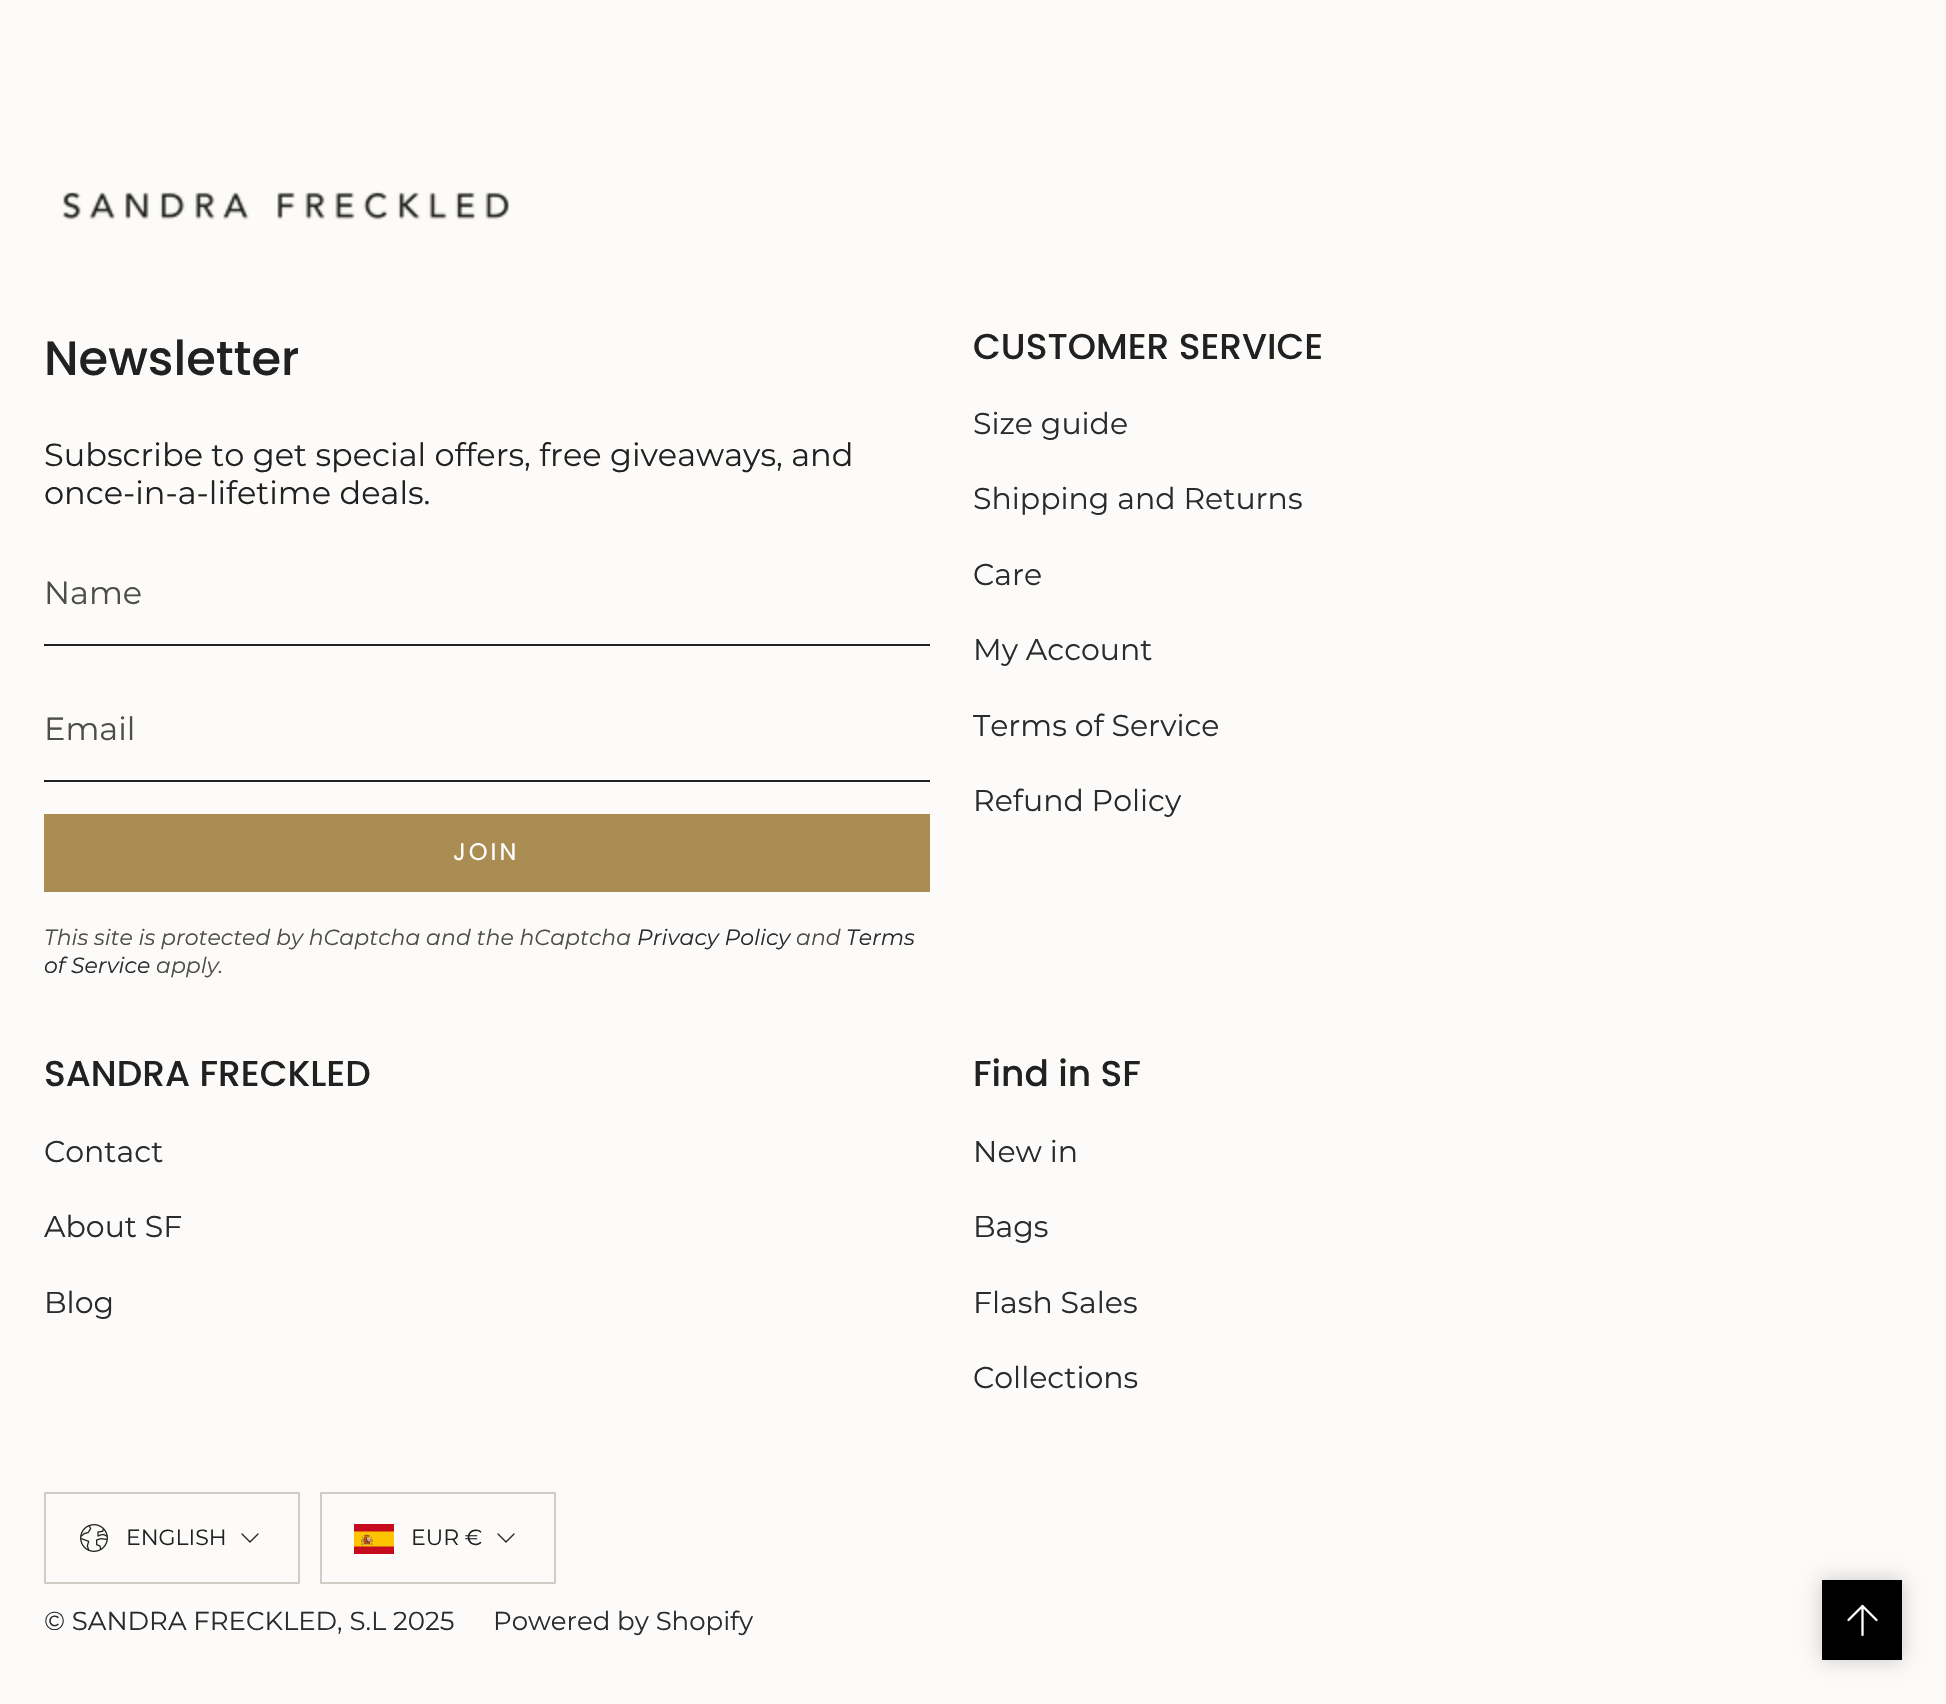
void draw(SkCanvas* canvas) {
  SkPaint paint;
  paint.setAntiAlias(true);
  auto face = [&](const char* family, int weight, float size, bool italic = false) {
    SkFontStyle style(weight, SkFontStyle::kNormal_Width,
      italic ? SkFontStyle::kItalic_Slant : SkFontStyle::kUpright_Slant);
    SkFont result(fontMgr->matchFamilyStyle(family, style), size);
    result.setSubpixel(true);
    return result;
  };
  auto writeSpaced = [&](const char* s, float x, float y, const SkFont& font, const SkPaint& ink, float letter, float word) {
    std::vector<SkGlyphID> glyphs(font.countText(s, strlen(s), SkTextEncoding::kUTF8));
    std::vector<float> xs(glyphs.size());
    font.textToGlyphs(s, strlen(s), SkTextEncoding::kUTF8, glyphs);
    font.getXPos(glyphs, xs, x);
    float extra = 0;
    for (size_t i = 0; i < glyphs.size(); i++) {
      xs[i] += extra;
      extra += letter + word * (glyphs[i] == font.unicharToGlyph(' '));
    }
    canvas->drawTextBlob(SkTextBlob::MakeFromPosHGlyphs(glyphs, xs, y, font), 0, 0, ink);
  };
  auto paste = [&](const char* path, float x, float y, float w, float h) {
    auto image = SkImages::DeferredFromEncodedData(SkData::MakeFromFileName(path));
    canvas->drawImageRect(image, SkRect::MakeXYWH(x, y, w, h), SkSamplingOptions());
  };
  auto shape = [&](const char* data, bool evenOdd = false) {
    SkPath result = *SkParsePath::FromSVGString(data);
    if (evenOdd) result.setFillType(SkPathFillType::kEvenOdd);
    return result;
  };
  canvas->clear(0xfffcfbf9);
  paste("img/1.png", 62, 191, 448, 29);
  {
    const struct { float x, y, w, h; SkColor color; } items[] = {
      {44, 644, 886, 2, 0xff212121},
      {44, 780, 886, 2, 0xff212121},
      {44, 814, 886, 78, 0xffab8c52},
    };
    for (auto [x, y, w, h, color] : items) {
      paint.setColor(color);
      canvas->drawRect(SkRect::MakeXYWH(x, y, w, h), paint);
    }
  }
  paint.setStroke(true);
  paint.setStrokeWidth(2);
  paint.setColor(0xffd1cdc4);
  canvas->drawRect(SkRect::MakeXYWH(45, 1493, 254, 90), paint);
  paste("img/2.png", 80, 1524, 28, 28);
  paint.setStrokeWidth(1.3f);
  paint.setStrokeCap(SkPaint::kRound_Cap);
  paint.setStrokeJoin(SkPaint::kRound_Join);
  paint.setColor(0xff212121);
  canvas->drawPath(shape("M242 1534L250 1542L258 1534"), paint);
  paint.setStrokeWidth(2);
  paint.setStrokeCap(SkPaint::kButt_Cap);
  paint.setStrokeJoin(SkPaint::kMiter_Join);
  paint.setColor(0xffd1cdc4);
  canvas->drawRect(SkRect::MakeXYWH(321, 1493, 234, 90), paint);
  paste("img/3.png", 354, 1524, 40, 30);
  paint.setStrokeWidth(1.3f);
  paint.setStrokeCap(SkPaint::kRound_Cap);
  paint.setStrokeJoin(SkPaint::kRound_Join);
  paint.setColor(0xff212121);
  canvas->drawPath(shape("M498 1534L506 1542L514 1534"), paint);
  paint.setStroke(false);
  paint.setColor(0x33000000);
  paint.setMaskFilter(SkMaskFilter::MakeBlur(kNormal_SkBlurStyle, 10));
  canvas->drawRect(SkRect::MakeXYWH(1822, 1580, 80, 80), paint);
  paint.setMaskFilter(nullptr);
  paint.setColor(0xff000000);
  canvas->drawRect(SkRect::MakeXYWH(1822, 1580, 80, 80), paint);
  paint.setStroke(true);
  paint.setStrokeWidth(2.3f);
  paint.setColor(0xffffffff);
  canvas->drawPath(shape("M1862.5 1635V1606M1862.5 1606L1876.5 1620M1862.5 1606L1848.5 1620"), paint);
  auto f0 = face("Poppins", 500, 48);
  paint.setStroke(false);
  paint.setColor(0xff212121);
  canvas->drawString("Newsletter", 44, 375, f0, paint);
  auto f1 = face("Montserrat", 400, 32);
  canvas->drawString("Subscribe to get special offers, free giveaways, and", 44, 466, f1, paint);
  canvas->drawString("once-in-a-lifetime deals.", 44, 504, f1, paint);
  paint.setColor(0xff4d4d4c);
  canvas->drawString("Name", 44, 604, f1, paint);
  canvas->drawString("Email", 44, 740, f1, paint);
  auto f2 = face("Poppins", 400, 24);
  paint.setColor(0xffffffff);
  writeSpaced("JOIN", 453, 860, f2, paint, 3, 0);
  auto f3 = face("Montserrat", 400, 22, true);
  paint.setColor(0xff4d4d4c);
  canvas->drawString("This site is protected by hCaptcha and the hCaptcha", 44, 945, f3, paint);
  paint.setColor(0xff282c2e);
  canvas->drawString("Privacy Policy", 637, 945, f3, paint);
  paint.setColor(0xff4d4d4c);
  canvas->drawString("and", 796, 945, f3, paint);
  paint.setColor(0xff282c2e);
  canvas->drawString("Terms", 846, 945, f3, paint);
  canvas->drawString("of Service", 44, 973, f3, paint);
  paint.setColor(0xff4d4d4c);
  canvas->drawString("apply.", 156, 973, f3, paint);
  auto f4 = face("Poppins", 500, 36);
  paint.setColor(0xff212121);
  canvas->drawString("CUSTOMER SERVICE", 973, 359, f4, paint);
  auto f5 = face("Montserrat", 400, 30);
  paint.setColor(0xff282c2e);
  {
    const struct { const char* s; float x, y; } items[] = {
      {"Size guide", 973, 434},
      {"Shipping and Returns", 973, 509},
      {"Care", 973, 585},
      {"My Account", 973, 660},
      {"Terms of Service", 973, 736},
      {"Refund Policy", 973, 811},
    };
    for (auto [s, x, y] : items) {
      canvas->drawString(s, x, y, f5, paint);
    }
  }
  paint.setColor(0xff212121);
  canvas->drawString("SANDRA FRECKLED", 44, 1086, f4, paint);
  paint.setColor(0xff282c2e);
  {
    const struct { const char* s; float x, y; } items[] = {
      {"Contact", 44, 1162},
      {"About SF", 44, 1237},
      {"Blog", 44, 1313},
    };
    for (auto [s, x, y] : items) {
      canvas->drawString(s, x, y, f5, paint);
    }
  }
  paint.setColor(0xff212121);
  canvas->drawString("Find in SF", 973, 1086, f4, paint);
  paint.setColor(0xff282c2e);
  {
    const struct { const char* s; float x, y; } items[] = {
      {"New in", 973, 1162},
      {"Bags", 973, 1237},
      {"Flash Sales", 973, 1313},
      {"Collections", 973, 1388},
    };
    for (auto [s, x, y] : items) {
      canvas->drawString(s, x, y, f5, paint);
    }
  }
  auto f6 = face("Montserrat", 400, 22);
  paint.setColor(0xff212121);
  canvas->drawString("ENGLISH", 126, 1545, f6, paint);
  canvas->drawString("EUR €", 411, 1545, f6, paint);
  auto f7 = face("Montserrat", 400, 26);
  paint.setColor(0xff282c2e);
  canvas->drawString("© SANDRA FRECKLED, S.L 2025", 44, 1630, f7, paint);
  canvas->drawString("Powered by Shopify", 493, 1630, f7, paint);
}
